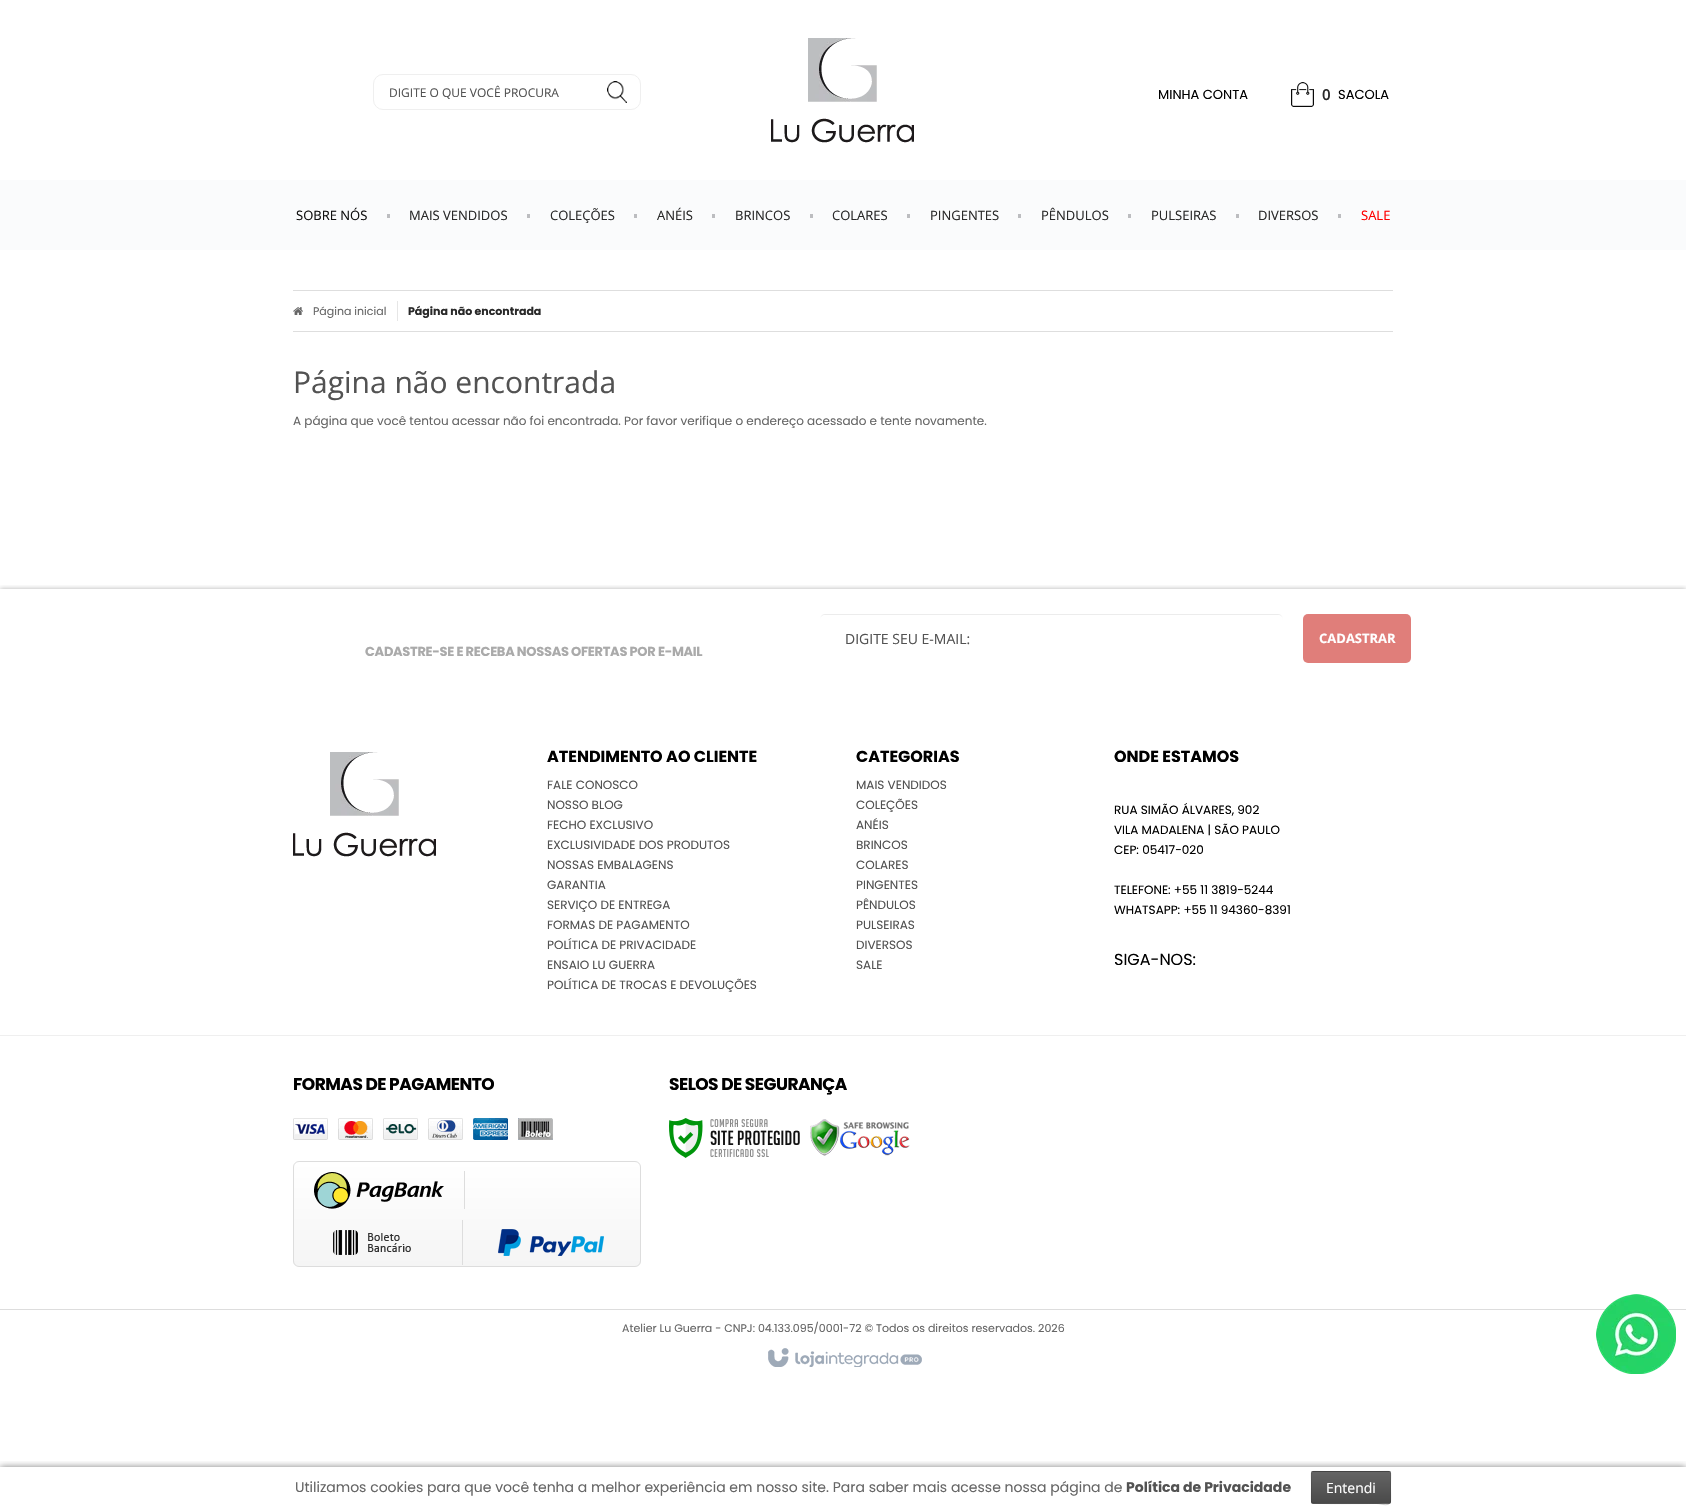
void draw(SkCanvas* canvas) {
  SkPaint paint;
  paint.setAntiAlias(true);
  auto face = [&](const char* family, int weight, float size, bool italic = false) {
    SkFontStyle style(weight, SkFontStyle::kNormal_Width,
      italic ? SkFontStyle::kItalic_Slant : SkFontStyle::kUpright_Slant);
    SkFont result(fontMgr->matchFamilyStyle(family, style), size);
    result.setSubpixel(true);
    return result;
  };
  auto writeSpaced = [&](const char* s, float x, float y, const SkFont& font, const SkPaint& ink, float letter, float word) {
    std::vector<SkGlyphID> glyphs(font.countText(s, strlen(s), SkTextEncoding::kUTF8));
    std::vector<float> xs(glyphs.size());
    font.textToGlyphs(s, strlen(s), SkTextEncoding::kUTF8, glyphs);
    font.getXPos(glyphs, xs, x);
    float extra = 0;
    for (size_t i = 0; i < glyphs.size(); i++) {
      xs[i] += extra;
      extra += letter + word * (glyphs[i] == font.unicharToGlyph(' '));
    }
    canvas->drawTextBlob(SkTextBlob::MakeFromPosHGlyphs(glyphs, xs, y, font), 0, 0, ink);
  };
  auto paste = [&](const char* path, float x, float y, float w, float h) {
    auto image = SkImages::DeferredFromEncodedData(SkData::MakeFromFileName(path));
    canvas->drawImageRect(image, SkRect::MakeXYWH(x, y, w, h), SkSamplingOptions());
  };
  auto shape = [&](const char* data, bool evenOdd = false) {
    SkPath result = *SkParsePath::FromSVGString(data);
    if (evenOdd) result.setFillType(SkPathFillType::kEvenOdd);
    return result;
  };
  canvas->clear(0xffffffff);
  paint.setStroke(true);
  paint.setStrokeWidth(1);
  paint.setColor(0xffefefef);
  canvas->drawRoundRect(SkRect::MakeXYWH(373.5f, 74.5f, 267, 35), 9.5f, 9.5f, paint);
  paste("img/1.png", 607, 81, 20, 22);
  paste("img/2.png", 771, 38, 143, 105);
  paste("img/3.png", 1291, 82, 23, 25);
  paint.setStroke(false);
  {
    const struct { float x, y, w, h; SkColor color; } items[] = {
      {0, 180, 1686, 70, 0xfffafbfc},
      {387, 214, 3, 4, 0xffbcbdc0},
      {527, 214, 3, 4, 0xffbcbdc0},
      {634, 214, 3, 4, 0xffbcbdc0},
      {712, 214, 3, 4, 0xffbcbdc0},
      {810, 214, 3, 4, 0xffbcbdc0},
      {907, 214, 3, 4, 0xffbcbdc0},
      {1018, 214, 3, 4, 0xffbcbdc0},
      {1128, 214, 3, 4, 0xffbcbdc0},
      {1236, 214, 3, 4, 0xffbcbdc0},
      {1338, 214, 3, 4, 0xffbcbdc0},
      {293, 290, 1100, 1, 0xffdedede},
      {293, 331, 1100, 1, 0xffdedede},
    };
    for (auto [x, y, w, h, color] : items) {
      paint.setColor(color);
      canvas->drawRect(SkRect::MakeXYWH(x, y, w, h), paint);
    }
  }
  paste("img/4.png", 293, 307, 10, 8);
  paint.setColor(0xffe6e6e6);
  canvas->drawRect(SkRect::MakeXYWH(397, 301, 1, 20), paint);
  canvas->save();
  canvas->clipRect(SkRect::MakeXYWH(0, 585, 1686, 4));
  paint.setColor(0x4d000000);
  paint.setMaskFilter(SkMaskFilter::MakeBlur(kNormal_SkBlurStyle, 2.5f));
  canvas->drawRect(SkRect::MakeXYWH(0, 589, 1686, 100), paint);
  paint.setMaskFilter(nullptr);
  canvas->restore();
  paint.setColor(0xffececec);
  canvas->drawPath(shape("M825 615H1278C1281 615 1283 617 1283 620C1283 617 1281 614 1278 614H825C822 614 820 617 820 620C820 617 822 615 825 615Z"), paint);
  paint.setColor(0xffe07e7a);
  canvas->drawRoundRect(SkRect::MakeXYWH(1303, 614, 108, 49), 5, 5, paint);
  paint.setColor(0xffffffff);
  canvas->drawRect(SkRect::MakeXYWH(0, 689, 1686, 5), paint);
  paste("img/2.png", 293, 752, 143, 105);
  paint.setColor(0xffefefef);
  canvas->drawRect(SkRect::MakeXYWH(0, 1035, 1686, 1), paint);
  paste("img/5.png", 293, 1118, 35, 22);
  paste("img/6.png", 338, 1118, 35, 22);
  paste("img/7.png", 383, 1118, 35, 22);
  paste("img/8.png", 428, 1118, 35, 22);
  paste("img/9.png", 473, 1118, 35, 22);
  paste("img/10.png", 518, 1118, 35, 22);
  canvas->save();
  canvas->clipPath(shape("M299 1161H635C638.5 1161 641 1163.5 641 1167V1261C641 1264.5 638.5 1267 635 1267H299C295.5 1267 293 1264.5 293 1261V1167C293 1163.5 295.5 1161 299 1161Z"), true);
  {
    const SkColor colors[] = {0xffffffff, 0xfff5f5f5};
    const float stops[] = {0, 1};
    const SkPoint ends[] = {{467, 1162}, {467, 1266}};
    paint.setShader(SkGradientShader::MakeLinear(ends, colors, stops, 2, SkTileMode::kClamp));
    paint.setAlpha(255);
  }
  canvas->drawRect(SkRect::MakeXYWH(293, 1162, 348, 104), paint);
  canvas->restore();
  paint.setStroke(true);
  paint.setShader(nullptr);
  paint.setColor(0xffdddddd);
  canvas->drawRoundRect(SkRect::MakeXYWH(293.5f, 1161.5f, 347, 105), 5.5f, 5.5f, paint);
  paste("img/11.png", 314, 1172, 130, 37);
  paint.setStroke(false);
  canvas->drawRect(SkRect::MakeXYWH(464, 1171, 1, 38), paint);
  canvas->drawRect(SkRect::MakeXYWH(462, 1220, 1, 45), paint);
  paste("img/12.png", 333, 1230, 78, 25);
  paste("img/13.png", 498, 1229, 106, 27);
  paste("img/14.png", 669, 1118, 131, 40);
  paste("img/15.png", 810, 1119, 100, 37);
  canvas->drawRect(SkRect::MakeXYWH(0, 1309, 1686, 1), paint);
  paste("img/16.png", 768, 1348, 154, 19);
  paste("img/17.png", 1596, 1294, 80, 80);
  canvas->save();
  canvas->clipRect(SkRect::MakeXYWH(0, 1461, 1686, 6));
  paint.setColor(0x80000000);
  paint.setMaskFilter(SkMaskFilter::MakeBlur(kNormal_SkBlurStyle, 3.5f));
  canvas->drawRect(SkRect::MakeXYWH(0, 1467, 1686, 40), paint);
  paint.setMaskFilter(nullptr);
  canvas->restore();
  paint.setColor(0xff525252);
  canvas->drawRoundRect(SkRect::MakeXYWH(1311, 1471, 80, 33), 2, 2, paint);
  {
    const SkColor colors[] = {0x1affffff, 0x1a000000};
    const float stops[] = {0, 1};
    const SkPoint ends[] = {{1351, 1441}, {1351, 1472}};
    paint.setShader(SkGradientShader::MakeLinear(ends, colors, stops, 2, SkTileMode::kClamp));
    paint.setAlpha(255);
  }
  canvas->drawRect(SkRect::MakeXYWH(1311, 1471, 80, 1), paint);
  {
    const SkColor colors[] = {0x1affffff, 0x1a000000};
    const float stops[] = {0, 1};
    const SkPoint ends[] = {{1351, 1472}, {1351, 1503}};
    paint.setShader(SkGradientShader::MakeLinear(ends, colors, stops, 2, SkTileMode::kClamp));
    paint.setAlpha(255);
  }
  canvas->drawRect(SkRect::MakeXYWH(1311, 1472, 80, 31), paint);
  {
    const SkColor colors[] = {0x1affffff, 0x1a000000};
    const float stops[] = {0, 1};
    const SkPoint ends[] = {{1351, 1503}, {1351, 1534}};
    paint.setShader(SkGradientShader::MakeLinear(ends, colors, stops, 2, SkTileMode::kClamp));
    paint.setAlpha(255);
  }
  canvas->drawRect(SkRect::MakeXYWH(1311, 1503, 80, 1), paint);
  paint.setStroke(true);
  paint.setShader(nullptr);
  paint.setColor(0x33000000);
  canvas->drawPath(shape("M1390 1503C1387 1506.5 1381 1503.5 1376.5 1503.5C1370 1503.5 1313 1504 1312 1503"), paint);
  paint.setColor(0x1a000000);
  canvas->drawPath(shape("M1312 1503C1310.5 1501.5 1311.5 1490 1311.5 1487.5C1311.5 1468 1307.5 1471.5 1325.5 1471.5H1376.5C1394.5 1471.5 1390.5 1468 1390.5 1487.5C1390.5 1490 1391.5 1501.5 1390 1503"), paint);
  auto f0 = face("Open Sans", 400, 12);
  paint.setStroke(false);
  paint.setColor(0xff525252);
  canvas->drawString("DIGITE O QUE VOCÊ PROCURA", 389, 97, f0, paint);
  auto f1 = face("Poppins", 400, 13);
  paint.setColor(0xff000000);
  canvas->drawString("MINHA CONTA", 1158, 99, f1, paint);
  auto f2 = face("Open Sans", 600, 15);
  paint.setColor(0xff292929);
  canvas->drawString("0", 1322, 100, f2, paint);
  paint.setColor(0xff000000);
  canvas->drawString("SACOLA", 1338, 99, f1, paint);
  auto f3 = face("Open Sans", 400, 13);
  paint.setColor(0xff101010);
  canvas->drawString("SOBRE NÓS", 296, 220, f3, paint);
  paint.setColor(0xff292929);
  {
    const struct { const char* s; float x, y; } items[] = {
      {"MAIS VENDIDOS", 409, 220},
      {"COLEÇÕES", 550, 220},
      {"ANÉIS", 657, 220},
      {"BRINCOS", 735, 220},
      {"COLARES", 832, 220},
      {"PINGENTES", 930, 220},
      {"PÊNDULOS", 1041, 220},
      {"PULSEIRAS", 1151, 220},
      {"DIVERSOS", 1258, 220},
    };
    for (auto [s, x, y] : items) {
      canvas->drawString(s, x, y, f3, paint);
    }
  }
  paint.setColor(0xffff0000);
  canvas->drawString("SALE", 1361, 220, f3, paint);
  auto f4 = face("Poppins", 400, 11);
  paint.setColor(0xff666666);
  canvas->drawString("Página inicial", 313, 315, f4, paint);
  auto f5 = face("Poppins", 700, 11);
  paint.setColor(0xff292929);
  canvas->drawString("Página não encontrada", 408, 315, f5, paint);
  auto f6 = face("Open Sans", 400, 30);
  paint.setColor(0xff525252);
  canvas->drawString("Página não encontrada", 293, 393, f6, paint);
  auto f7 = face("Poppins", 400, 12);
  paint.setColor(0xff666666);
  canvas->drawString("A página que você tentou acessar não foi encontrada. Por favor verifique o endereço acessado e tente novamente.", 293, 425, f7, paint);
  auto f8 = face("Open Sans", 400, 14);
  paint.setColor(0xff525252);
  canvas->drawString("DIGITE SEU E-MAIL:", 845, 644, f8, paint);
  auto f9 = face("Open Sans", 700, 13);
  paint.setColor(0xffffffff);
  canvas->drawString("CADASTRAR", 1319, 643, f9, paint);
  auto f10 = face("Poppins", 700, 13);
  paint.setColor(0xffaaaaaa);
  writeSpaced("CADASTRE-SE E RECEBA NOSSAS OFERTAS POR E-MAIL", 365, 656, f10, paint, -0.3f, 0);
  auto f11 = face("Poppins", 700, 16);
  paint.setColor(0xff000000);
  canvas->drawString("ATENDIMENTO AO CLIENTE", 547, 762, f11, paint);
  paint.setColor(0xff525252);
  {
    const struct { const char* s; float x, y; } items[] = {
      {"FALE CONOSCO", 547, 789},
      {"NOSSO BLOG", 547, 809},
      {"FECHO EXCLUSIVO", 547, 829},
      {"EXCLUSIVIDADE DOS PRODUTOS", 547, 849},
      {"NOSSAS EMBALAGENS", 547, 869},
      {"GARANTIA", 547, 889},
      {"SERVIÇO DE ENTREGA", 547, 909},
      {"FORMAS DE PAGAMENTO", 547, 929},
      {"POLÍTICA DE PRIVACIDADE", 547, 949},
      {"ENSAIO LU GUERRA", 547, 969},
      {"POLÍTICA DE TROCAS E DEVOLUÇÕES", 547, 989},
    };
    for (auto [s, x, y] : items) {
      canvas->drawString(s, x, y, f7, paint);
    }
  }
  paint.setColor(0xff000000);
  canvas->drawString("CATEGORIAS", 856, 762, f11, paint);
  paint.setColor(0xff525252);
  {
    const struct { const char* s; float x, y; } items[] = {
      {"MAIS VENDIDOS", 856, 789},
      {"COLEÇÕES", 856, 809},
      {"ANÉIS", 856, 829},
      {"BRINCOS", 856, 849},
      {"COLARES", 856, 869},
      {"PINGENTES", 856, 889},
      {"PÊNDULOS", 856, 909},
      {"PULSEIRAS", 856, 929},
      {"DIVERSOS", 856, 949},
      {"SALE", 856, 969},
    };
    for (auto [s, x, y] : items) {
      canvas->drawString(s, x, y, f7, paint);
    }
  }
  paint.setColor(0xff000000);
  canvas->drawString("ONDE ESTAMOS", 1114, 762, f11, paint);
  {
    const struct { const char* s; float x, y; } items[] = {
      {"RUA SIMÃO ÁLVARES, 902", 1114, 814},
      {"VILA MADALENA | SÃO PAULO", 1114, 834},
      {"CEP: 05417-020", 1114, 854},
      {"TELEFONE: +55 11 3819-5244", 1114, 894},
      {"WHATSAPP: +55 11 94360-8391", 1114, 914},
    };
    for (auto [s, x, y] : items) {
      canvas->drawString(s, x, y, f7, paint);
    }
  }
  auto f12 = face("Poppins", 400, 16);
  canvas->drawString("SIGA-NOS:", 1114, 965, f12, paint);
  auto f13 = face("Poppins", 700, 17);
  writeSpaced("FORMAS DE PAGAMENTO", 293, 1090, f13, paint, -0.5f, 0);
  writeSpaced("SELOS DE SEGURANÇA", 669, 1090, f13, paint, -0.5f, 0);
  paint.setColor(0xff666666);
  canvas->drawString("Atelier Lu Guerra - CNPJ: 04.133.095/0001-72 © Todos os direitos reservados. 2026", 622, 1332, f4, paint);
  auto f14 = face("Poppins", 400, 14);
  canvas->drawString("Utilizamos cookies para que você tenha a melhor experiência em nosso site. Para saber mais acesse nossa página de", 295, 1492, f14, paint);
  auto f15 = face("Poppins", 700, 14);
  paint.setColor(0xff525252);
  canvas->drawString("Política de Privacidade", 1126, 1492, f15, paint);
  paint.setColor(0xffffffff);
  canvas->drawString("Entendi", 1326, 1493, f8, paint);
}
